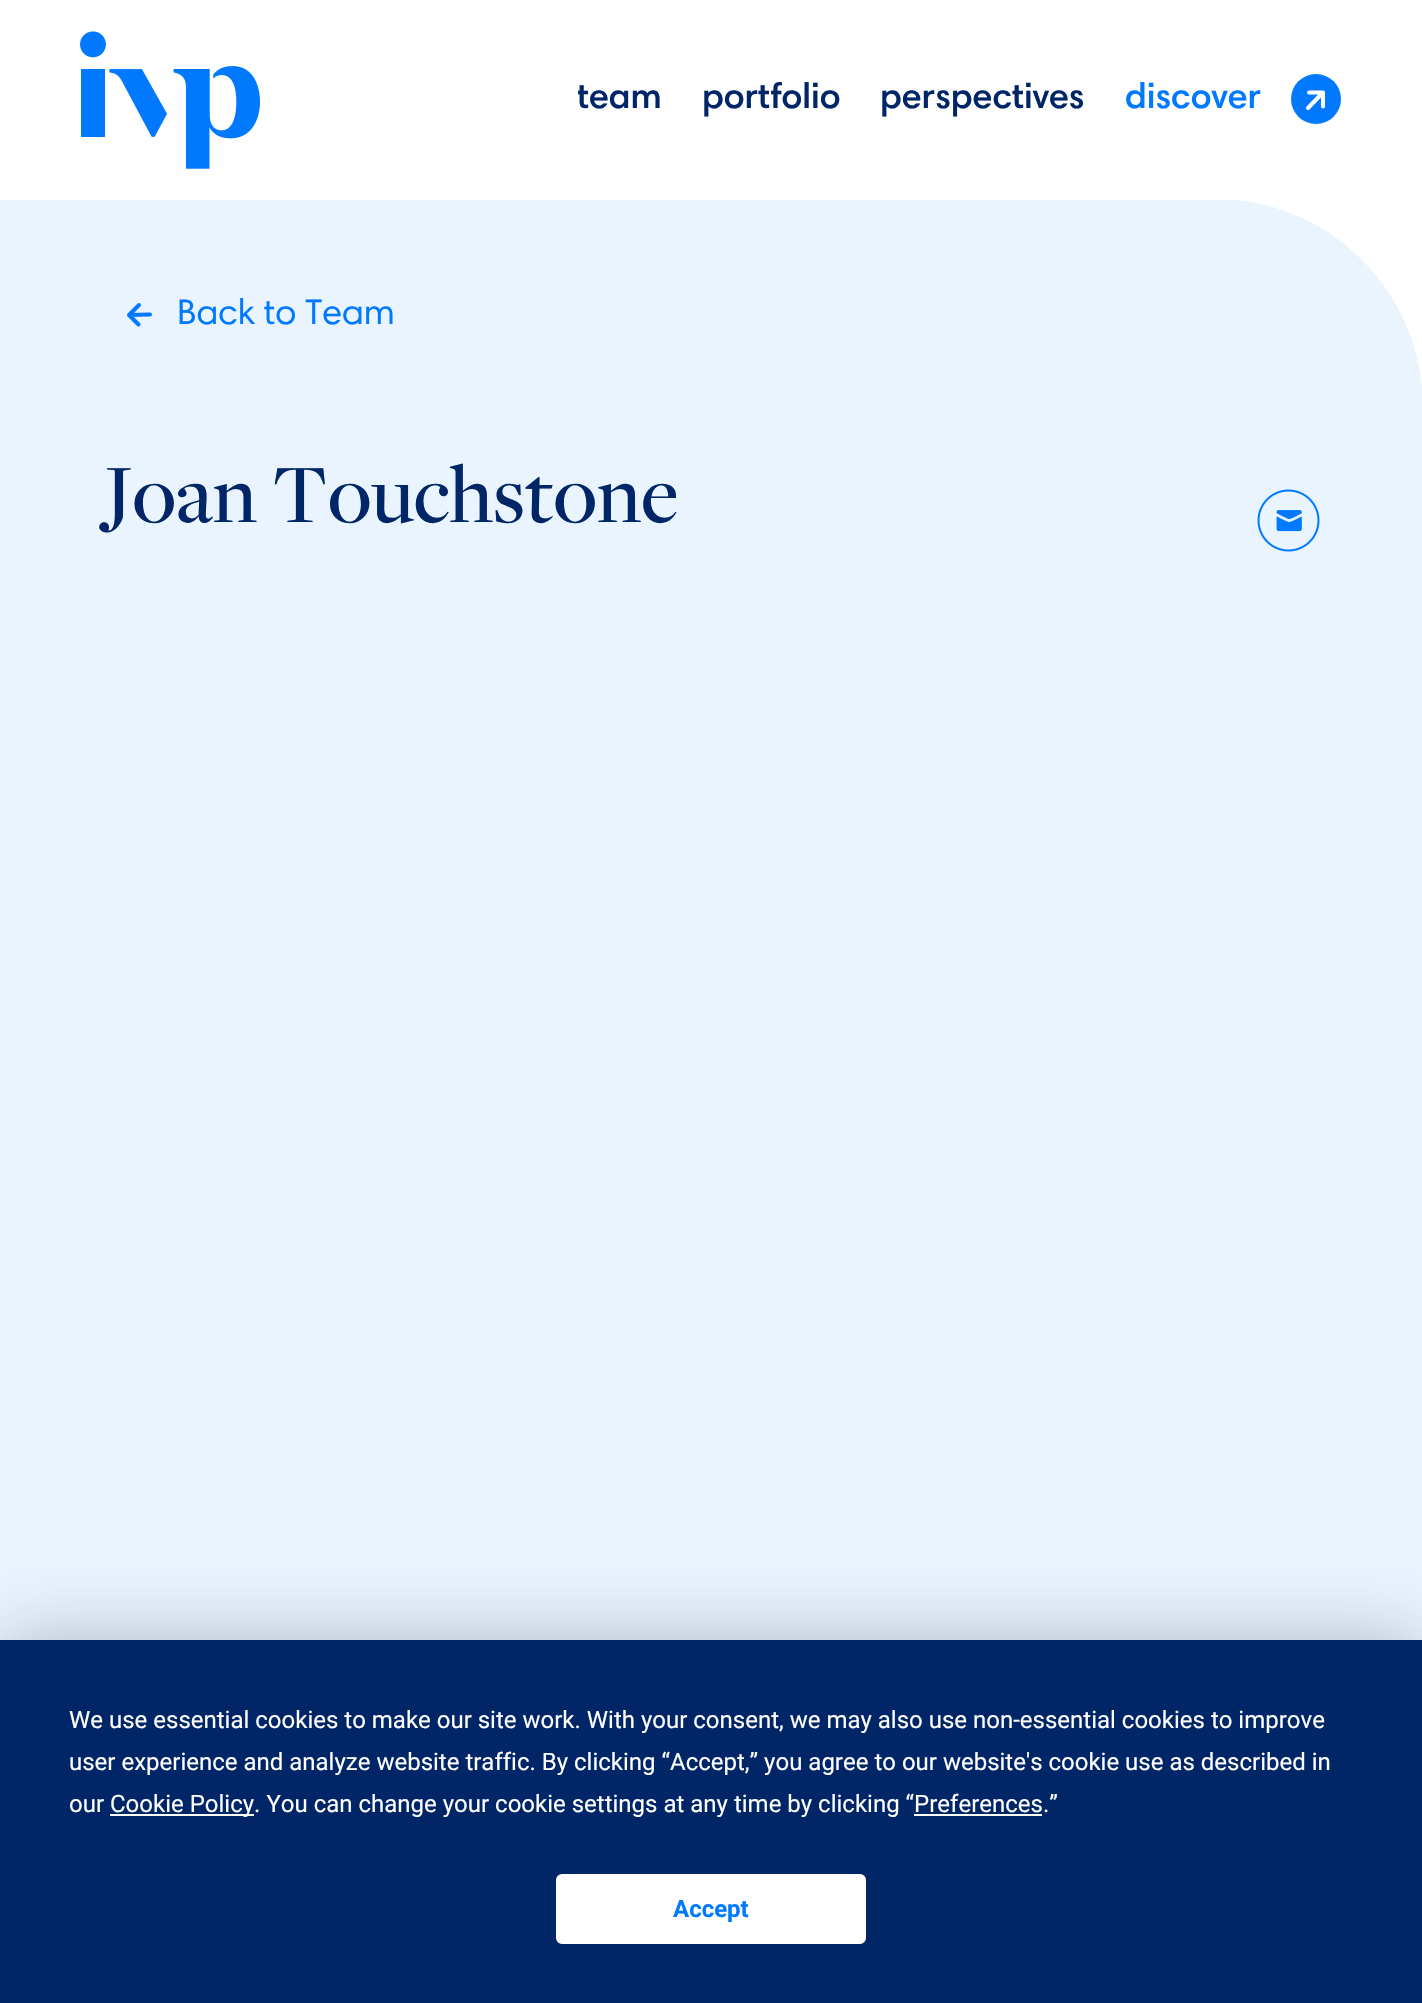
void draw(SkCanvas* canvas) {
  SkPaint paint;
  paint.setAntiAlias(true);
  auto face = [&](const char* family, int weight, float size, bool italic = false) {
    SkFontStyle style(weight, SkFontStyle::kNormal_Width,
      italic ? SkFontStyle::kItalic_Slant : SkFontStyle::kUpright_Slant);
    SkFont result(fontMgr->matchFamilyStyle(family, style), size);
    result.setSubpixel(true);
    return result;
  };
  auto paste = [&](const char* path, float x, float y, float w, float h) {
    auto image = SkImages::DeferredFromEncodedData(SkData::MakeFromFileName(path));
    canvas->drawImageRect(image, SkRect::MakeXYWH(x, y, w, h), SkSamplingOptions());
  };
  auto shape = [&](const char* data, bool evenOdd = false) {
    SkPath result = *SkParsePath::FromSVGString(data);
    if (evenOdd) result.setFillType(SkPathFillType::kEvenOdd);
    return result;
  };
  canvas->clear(0xffe9f4ff);
  paint.setColor(0xffffffff);
  canvas->drawRect(SkRect::MakeXYWH(0, 0, 1422, 200), paint);
  paste("img/1.png", 80, 31, 180, 138);
  paint.setColor(0xff0079fe);
  canvas->drawCircle(1316, 99, 25, paint);
  paint.setStroke(true);
  paint.setStrokeWidth(4);
  paint.setStrokeCap(SkPaint::kRound_Cap);
  paint.setColor(0xffffffff);
  canvas->drawPath(shape("M1309 92.5H1323M1308 108L1323 92.5M1323 106.5V92.5"), paint);
  paint.setStroke(false);
  canvas->drawPath(shape("M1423 199V407C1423 292 1330 199 1215 199Z"), paint);
  paint.setStroke(true);
  paint.setColor(0xff0079fe);
  canvas->drawPath(shape("M138.5 324.5L129 315M150 314.5L129 315M139 305L129 315"), paint);
  paste("img/2.png", 1257, 489, 63, 63);
  paint.setStroke(false);
  paint.setColor(0x40000000);
  paint.setMaskFilter(SkMaskFilter::MakeBlur(kNormal_SkBlurStyle, 35));
  canvas->drawRect(SkRect::MakeXYWH(0, 1640, 1422, 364), paint);
  paint.setMaskFilter(nullptr);
  {
    const struct { float x, y, w, h; SkColor color; } items[] = {
      {0, 1640, 1422, 363, 0xff002667},
      {110, 1814, 144, 2, 0xffffffff},
      {914, 1814, 128, 2, 0xffffffff},
    };
    for (auto [x, y, w, h, color] : items) {
      paint.setColor(color);
      canvas->drawRect(SkRect::MakeXYWH(x, y, w, h), paint);
    }
  }
  canvas->drawRoundRect(SkRect::MakeXYWH(557, 1875, 308, 68), 5, 5, paint);
  paint.setStroke(true);
  paint.setStrokeWidth(2);
  paint.setStrokeCap(SkPaint::kButt_Cap);
  canvas->drawRoundRect(SkRect::MakeXYWH(557, 1875, 308, 68), 5, 5, paint);
  canvas->save();
  canvas->clipRect(SkRect::MakeXYWH(578, 0, 506, 200));
  auto f0 = face("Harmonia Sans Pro", 600, 36);
  paint.setStroke(false);
  paint.setColor(0xff002667);
  canvas->drawString("team", 577, 108, f0, paint);
  canvas->restore();
  canvas->drawString("portfolio", 702, 108, f0, paint);
  canvas->drawString("perspectives", 880, 108, f0, paint);
  paint.setColor(0xff0079fe);
  canvas->drawString("discover", 1125, 108, f0, paint);
  auto f1 = face("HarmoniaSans", 400, 36);
  canvas->drawString("Back to Team", 177, 324, f1, paint);
  auto f2 = face("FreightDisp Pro", 500, 86);
  paint.setColor(0xff002667);
  canvas->drawString("Joan Touchstone", 103, 522, f2, paint);
  auto f3 = face("Roboto", 400, 24);
  paint.setColor(0xffffffff);
  {
    const struct { const char* s; float x, y; } items[] = {
      {"We use essential cookies to make our site work. With your consent, we may also use non-essential cookies to improve", 69, 1728},
      {"user experience and analyze website traffic. By clicking “Accept,” you agree to our website's cookie use as described in", 69, 1770},
      {"our", 69, 1812},
      {"Cookie Policy. You can change your cookie settings at any time by clicking “Preferences.”", 110, 1812},
    };
    for (auto [s, x, y] : items) {
      canvas->drawString(s, x, y, f3, paint);
    }
  }
  auto f4 = face("Roboto", 700, 24);
  paint.setColor(0xff0079fe);
  canvas->drawString("Accept", 673, 1917, f4, paint);
}
